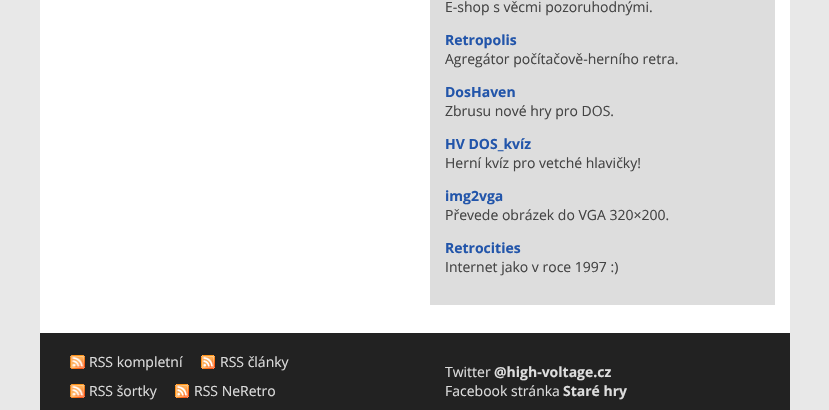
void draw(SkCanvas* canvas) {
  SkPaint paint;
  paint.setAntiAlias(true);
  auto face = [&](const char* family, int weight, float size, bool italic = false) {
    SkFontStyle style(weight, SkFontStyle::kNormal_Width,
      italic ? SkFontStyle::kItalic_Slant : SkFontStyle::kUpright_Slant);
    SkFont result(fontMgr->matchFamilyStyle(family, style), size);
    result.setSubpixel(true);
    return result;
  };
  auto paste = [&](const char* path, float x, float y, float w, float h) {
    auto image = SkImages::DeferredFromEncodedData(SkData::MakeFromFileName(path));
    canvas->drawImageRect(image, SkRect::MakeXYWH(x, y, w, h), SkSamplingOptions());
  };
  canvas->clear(0xffe8e8e8);
  {
    const struct { float x, y, w, h; SkColor color; } items[] = {
      {40, 0, 750, 333, 0xffffffff},
      {430, 0, 345, 305, 0xffdddddd},
      {40, 333, 750, 77, 0xff222222},
    };
    for (auto [x, y, w, h, color] : items) {
      paint.setColor(color);
      canvas->drawRect(SkRect::MakeXYWH(x, y, w, h), paint);
    }
  }
  paste("img/1.png", 70, 355, 15, 14);
  paste("img/2.png", 201, 355, 14, 14);
  paste("img/1.png", 70, 384, 15, 14);
  paste("img/2.png", 175, 384, 14, 14);
  auto f0 = face("Open Sans", 400, 14);
  paint.setColor(0xff444444);
  canvas->drawString("E-shop s věcmi pozoruhodnými.", 445, 12, f0, paint);
  auto f1 = face("Open Sans", 700, 14);
  paint.setColor(0xff2255aa);
  canvas->drawString("Retropolis", 445, 45, f1, paint);
  paint.setColor(0xff444444);
  canvas->drawString("Agregátor počítačově-herního retra.", 445, 64, f0, paint);
  paint.setColor(0xff2255aa);
  canvas->drawString("DosHaven", 445, 97, f1, paint);
  paint.setColor(0xff444444);
  canvas->drawString("Zbrusu nové hry pro DOS.", 445, 116, f0, paint);
  paint.setColor(0xff2255aa);
  canvas->drawString("HV DOS_kvíz", 445, 149, f1, paint);
  paint.setColor(0xff444444);
  canvas->drawString("Herní kvíz pro vetché hlavičky!", 445, 168, f0, paint);
  paint.setColor(0xff2255aa);
  canvas->drawString("img2vga", 445, 201, f1, paint);
  paint.setColor(0xff444444);
  canvas->drawString("Převede obrázek do VGA 320×200.", 445, 220, f0, paint);
  paint.setColor(0xff2255aa);
  canvas->drawString("Retrocities", 445, 253, f1, paint);
  paint.setColor(0xff444444);
  canvas->drawString("Internet jako v roce 1997 :)", 445, 272, f0, paint);
  paint.setColor(0xffdddddd);
  {
    const struct { const char* s; float x, y; } items[] = {
      {"RSS kompletní", 89, 367},
      {"RSS články", 220, 367},
      {"RSS šortky", 89, 396},
      {"RSS NeRetro", 194, 396},
      {"Twitter", 445, 377},
    };
    for (auto [s, x, y] : items) {
      canvas->drawString(s, x, y, f0, paint);
    }
  }
  canvas->drawString("@high-voltage.cz", 494, 377, f1, paint);
  canvas->drawString("Facebook stránka", 445, 396, f0, paint);
  canvas->drawString("Staré hry", 563, 396, f1, paint);
}
